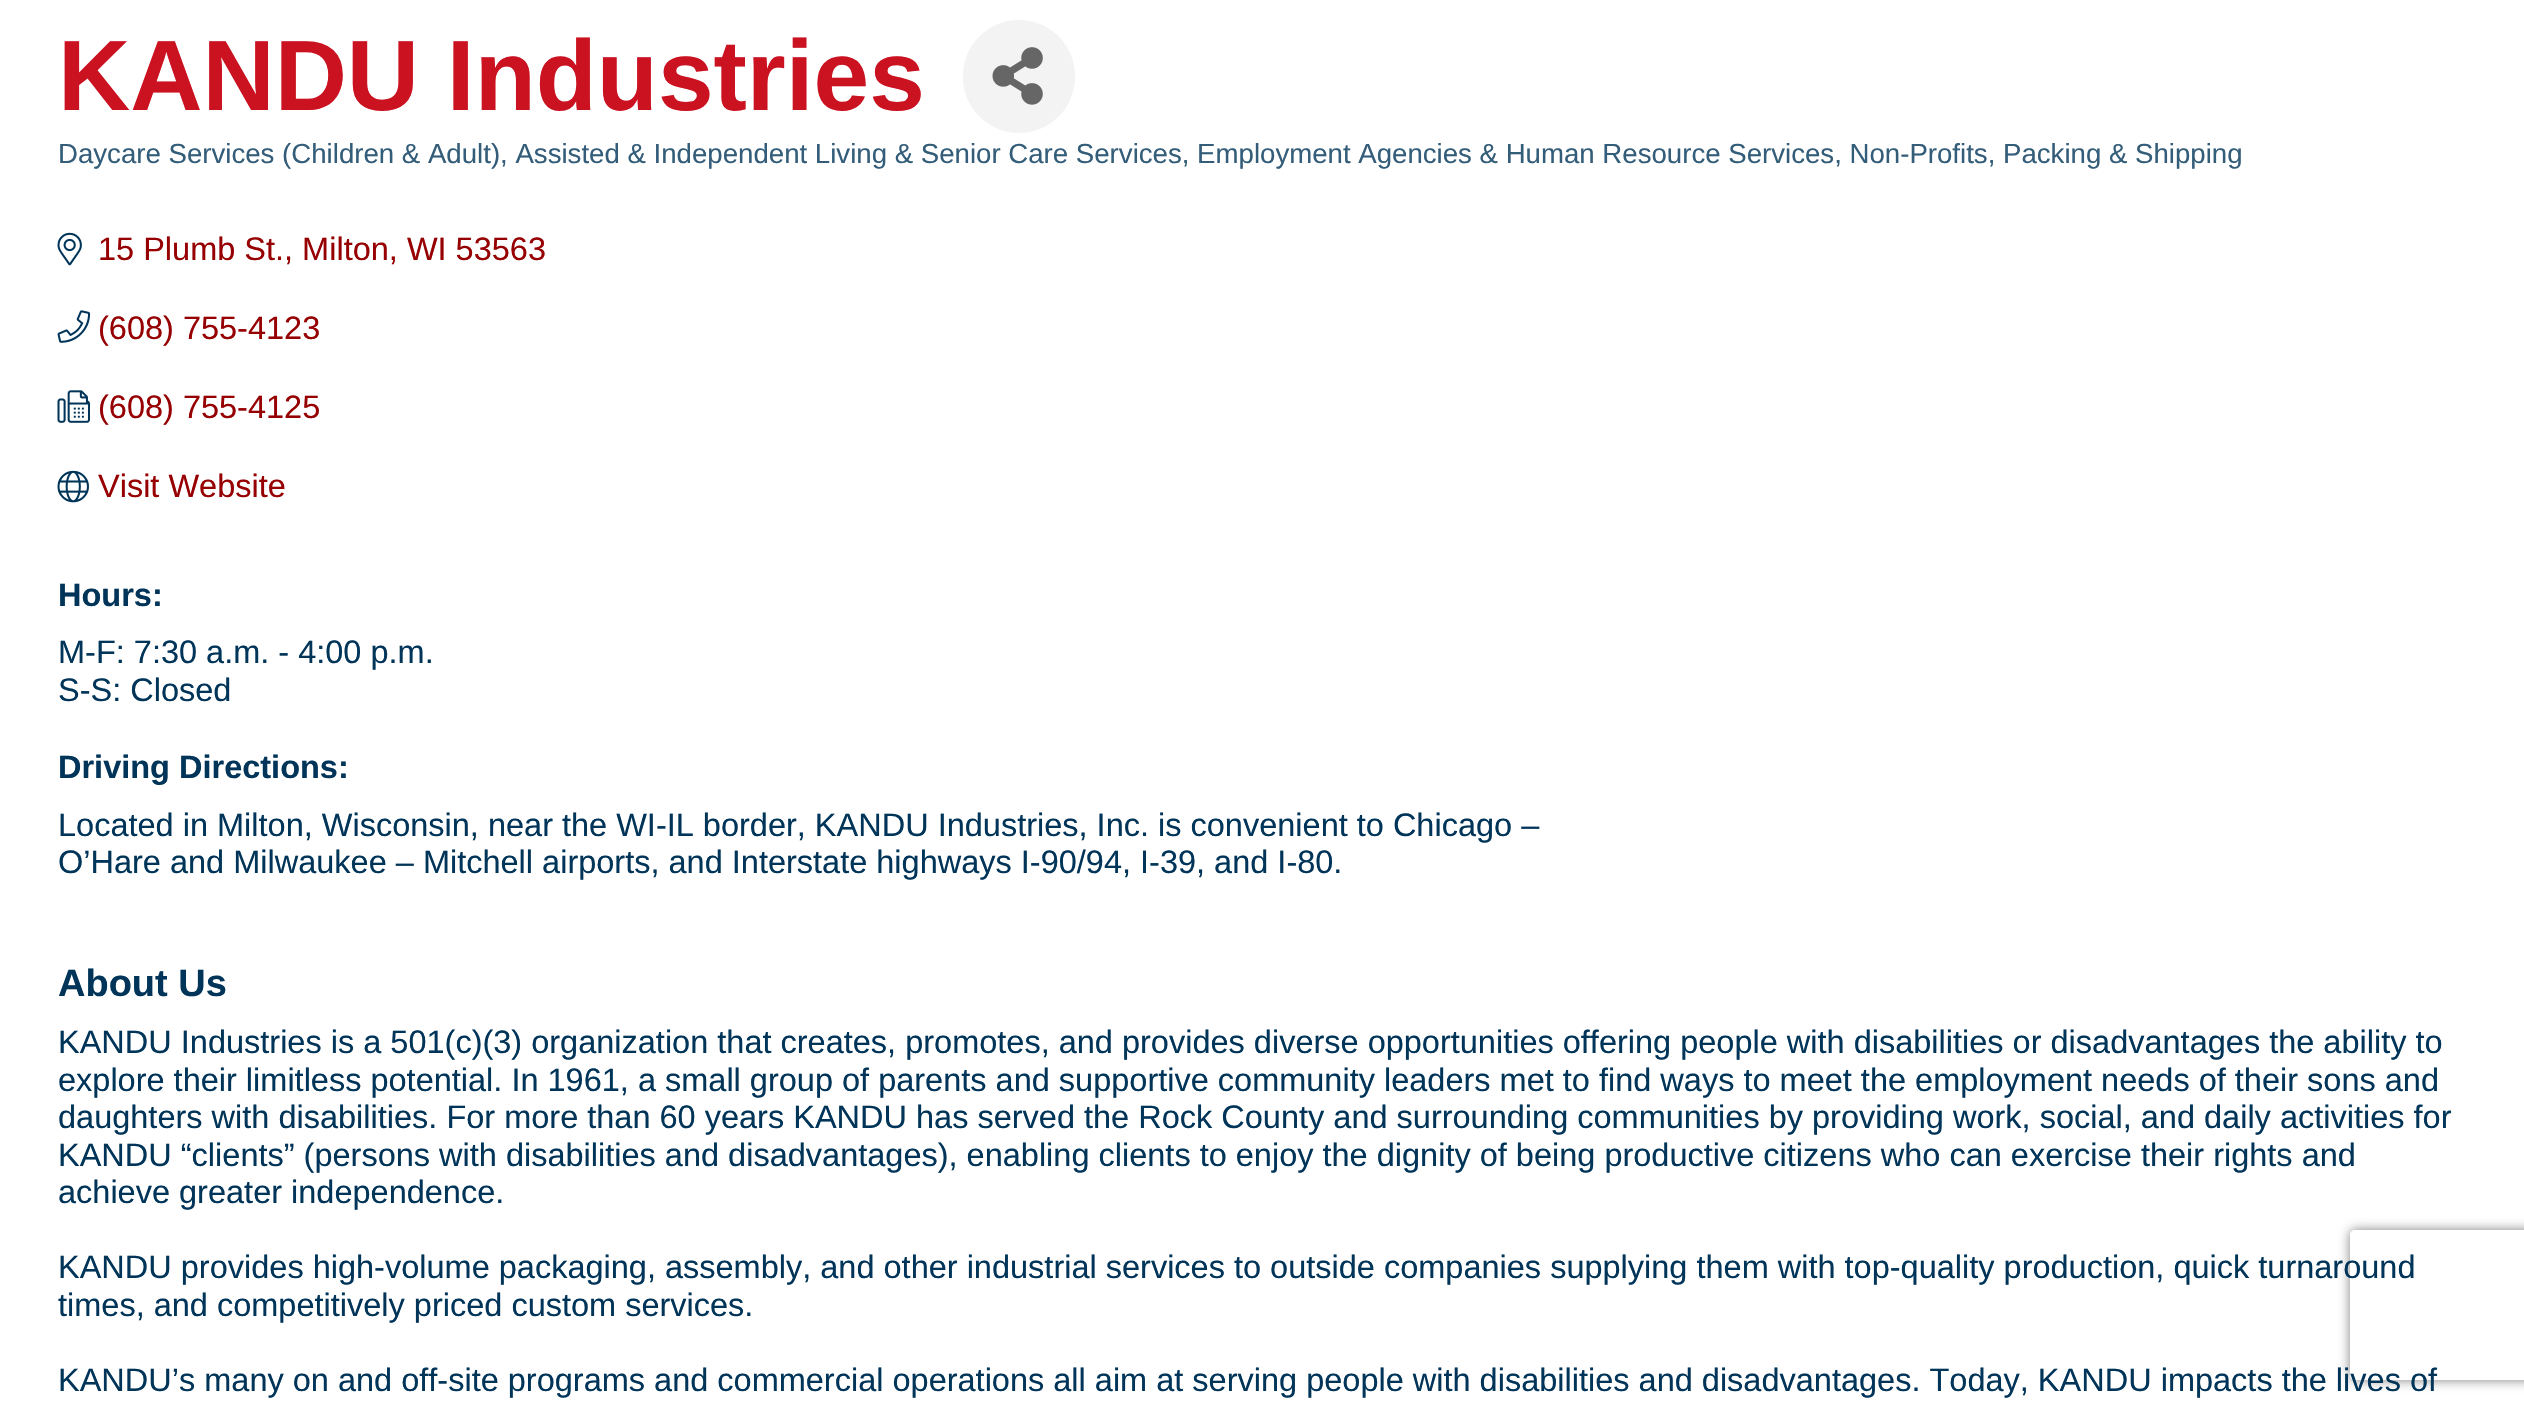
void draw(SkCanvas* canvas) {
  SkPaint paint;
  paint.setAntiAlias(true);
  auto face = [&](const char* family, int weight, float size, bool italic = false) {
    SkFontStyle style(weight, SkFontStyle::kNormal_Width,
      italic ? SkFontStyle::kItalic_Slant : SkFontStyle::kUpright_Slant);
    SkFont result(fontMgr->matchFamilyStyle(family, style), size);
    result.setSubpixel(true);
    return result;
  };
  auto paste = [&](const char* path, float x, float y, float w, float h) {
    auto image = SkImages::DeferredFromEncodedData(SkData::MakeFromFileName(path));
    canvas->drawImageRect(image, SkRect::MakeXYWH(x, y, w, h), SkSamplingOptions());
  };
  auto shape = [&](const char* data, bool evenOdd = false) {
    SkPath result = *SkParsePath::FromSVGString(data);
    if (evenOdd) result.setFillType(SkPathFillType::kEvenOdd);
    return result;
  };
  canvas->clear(0xffffffff);
  paint.setColor(0xfff3f3f3);
  canvas->drawRoundRect(SkRect::MakeXYWH(963, 20, 112, 113), 56, 56, paint);
  paste("img/1.png", 992, 47, 51, 58);
  paste("img/2.png", 57, 232, 25, 34);
  paste("img/3.png", 57, 310, 34, 33);
  paste("img/4.png", 57, 390, 33, 33);
  paste("img/5.png", 57, 470, 32, 33);
  canvas->save();
  canvas->clipPath(shape("M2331 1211H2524V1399H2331ZM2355 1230H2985C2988 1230 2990 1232 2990 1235V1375C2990 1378 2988 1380 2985 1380H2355C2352 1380 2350 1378 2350 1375V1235C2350 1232 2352 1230 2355 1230Z", true), true);
  paint.setColor(0xff808080);
  paint.setMaskFilter(SkMaskFilter::MakeBlur(kNormal_SkBlurStyle, 6));
  canvas->drawRoundRect(SkRect::MakeXYWH(2350, 1230, 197, 150), 5, 5, paint);
  paint.setMaskFilter(nullptr);
  canvas->restore();
  auto f0 = face("Liberation Sans", 700, 100);
  paint.setColor(0xffcb1221);
  canvas->drawString("KANDU Industries", 58, 110, f0, paint);
  auto f1 = face("Liberation Sans", 400, 27.62f);
  paint.setColor(0xff335d79);
  canvas->drawString("Daycare Services (Children & Adult), Assisted & Independent Living & Senior Care Services, Employment Agencies & Human Resource Services, Non-Profits, Packing & Shipping", 58, 163, f1, paint);
  auto f2 = face("Liberation Sans", 400, 32.5f);
  paint.setColor(0xff960002);
  {
    const struct { const char* s; float x, y; } items[] = {
      {"15 Plumb St., Milton, WI 53563", 98, 260},
      {"(608) 755-4123", 98, 339},
      {"(608) 755-4125", 98, 418},
      {"Visit Website", 98, 497},
    };
    for (auto [s, x, y] : items) {
      canvas->drawString(s, x, y, f2, paint);
    }
  }
  auto f3 = face("Liberation Sans", 700, 32.5f);
  paint.setColor(0xff003458);
  canvas->drawString("Hours:", 58, 606, f3, paint);
  canvas->drawString("M-F: 7:30 a.m. - 4:00 p.m.", 58, 663, f2, paint);
  canvas->drawString("S-S: Closed", 58, 701, f2, paint);
  canvas->drawString("Driving Directions:", 58, 778, f3, paint);
  canvas->drawString("Located in Milton, Wisconsin, near the WI-IL border, KANDU Industries, Inc. is convenient to Chicago –", 58, 836, f2, paint);
  canvas->drawString("O’Hare and Milwaukee – Mitchell airports, and Interstate highways I-90/94, I-39, and I-80.", 58, 873, f2, paint);
  auto f4 = face("Liberation Sans", 700, 38);
  canvas->drawString("About Us", 58, 996, f4, paint);
  {
    const struct { const char* s; float x, y; } items[] = {
      {"KANDU Industries is a 501(c)(3) organization that creates, promotes, and provides diverse opportunities offering people with disabilities or disadvantages the ability to", 58, 1053},
      {"explore their limitless potential. In 1961, a small group of parents and supportive community leaders met to find ways to meet the employment needs of their sons and", 58, 1091},
      {"daughters with disabilities. For more than 60 years KANDU has served the Rock County and surrounding communities by providing work, social, and daily activities for", 58, 1128},
      {"KANDU “clients” (persons with disabilities and disadvantages), enabling clients to enjoy the dignity of being productive citizens who can exercise their rights and", 58, 1166},
      {"achieve greater independence.", 58, 1203},
      {"KANDU provides high-volume packaging, assembly, and other industrial services to outside companies supplying them with top-quality production, quick turnaround", 58, 1278},
      {"times, and competitively priced custom services.", 58, 1316},
      {"KANDU’s many on and off-site programs and commercial operations all aim at serving people with disabilities and disadvantages. Today, KANDU impacts the lives of", 58, 1391},
    };
    for (auto [s, x, y] : items) {
      canvas->drawString(s, x, y, f2, paint);
    }
  }
}
